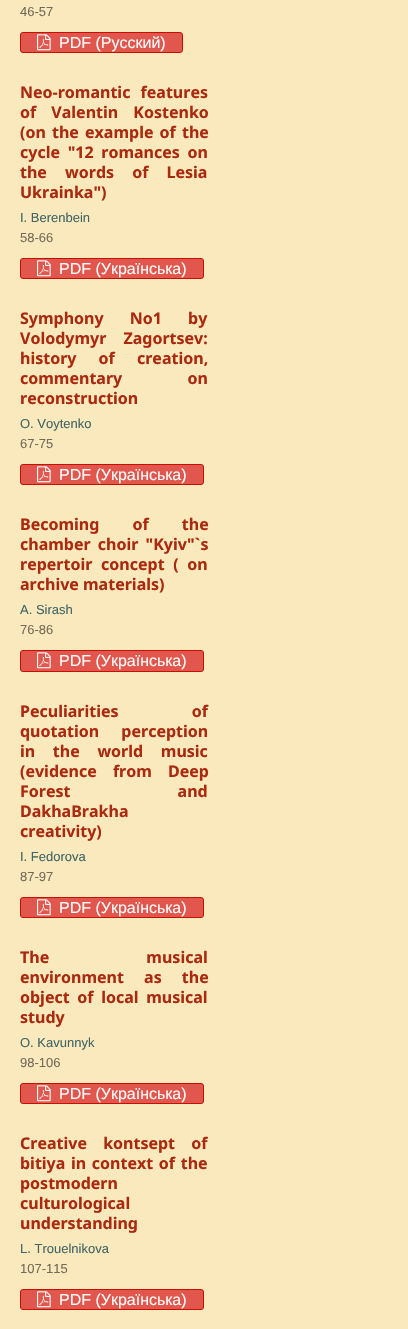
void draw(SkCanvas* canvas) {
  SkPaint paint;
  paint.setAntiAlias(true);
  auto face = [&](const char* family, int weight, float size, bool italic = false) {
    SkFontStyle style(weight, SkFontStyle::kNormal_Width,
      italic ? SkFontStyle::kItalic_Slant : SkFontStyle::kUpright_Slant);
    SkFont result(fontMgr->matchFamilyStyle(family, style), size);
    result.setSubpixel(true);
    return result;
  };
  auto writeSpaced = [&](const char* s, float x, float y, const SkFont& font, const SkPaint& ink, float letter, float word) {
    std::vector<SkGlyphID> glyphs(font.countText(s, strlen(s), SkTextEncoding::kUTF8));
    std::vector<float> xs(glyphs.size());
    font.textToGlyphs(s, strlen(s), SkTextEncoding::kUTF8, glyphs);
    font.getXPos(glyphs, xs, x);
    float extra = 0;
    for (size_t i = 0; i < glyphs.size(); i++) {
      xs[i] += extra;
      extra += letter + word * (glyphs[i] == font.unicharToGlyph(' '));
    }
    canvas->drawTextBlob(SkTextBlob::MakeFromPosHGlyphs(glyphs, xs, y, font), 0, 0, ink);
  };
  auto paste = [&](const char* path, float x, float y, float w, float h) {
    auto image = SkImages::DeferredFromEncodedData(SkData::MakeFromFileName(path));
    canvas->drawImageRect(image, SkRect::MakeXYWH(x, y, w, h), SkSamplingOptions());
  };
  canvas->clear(0xfffae9bd);
  paint.setColor(0xffe1574d);
  canvas->drawRoundRect(SkRect::MakeXYWH(20.5f, 32.5f, 162, 20), 2.5f, 2.5f, paint);
  paint.setStroke(true);
  paint.setStrokeWidth(1);
  paint.setColor(0xffc81002);
  canvas->drawRoundRect(SkRect::MakeXYWH(20.5f, 32.5f, 162, 20), 2.5f, 2.5f, paint);
  paste("img/1.png", 37, 34, 14, 17);
  paint.setStroke(false);
  paint.setColor(0xffe1574d);
  canvas->drawRoundRect(SkRect::MakeXYWH(20.5f, 258.5f, 183, 20), 2.5f, 2.5f, paint);
  paint.setStroke(true);
  paint.setColor(0xffc81002);
  canvas->drawRoundRect(SkRect::MakeXYWH(20.5f, 258.5f, 183, 20), 2.5f, 2.5f, paint);
  paste("img/1.png", 37, 260, 14, 17);
  paint.setStroke(false);
  paint.setColor(0xffe1574d);
  canvas->drawRoundRect(SkRect::MakeXYWH(20.5f, 464.5f, 183, 20), 2.5f, 2.5f, paint);
  paint.setStroke(true);
  paint.setColor(0xffc81002);
  canvas->drawRoundRect(SkRect::MakeXYWH(20.5f, 464.5f, 183, 20), 2.5f, 2.5f, paint);
  paste("img/1.png", 37, 466, 14, 17);
  paint.setStroke(false);
  paint.setColor(0xffe1574d);
  canvas->drawRoundRect(SkRect::MakeXYWH(20.5f, 650.5f, 183, 21), 2.5f, 2.5f, paint);
  paint.setStroke(true);
  paint.setColor(0xffc81002);
  canvas->drawRoundRect(SkRect::MakeXYWH(20.5f, 650.5f, 183, 21), 2.5f, 2.5f, paint);
  paste("img/1.png", 37, 652, 14, 17);
  paint.setStroke(false);
  paint.setColor(0xffe1574d);
  canvas->drawRoundRect(SkRect::MakeXYWH(20.5f, 897.5f, 183, 20), 2.5f, 2.5f, paint);
  paint.setStroke(true);
  paint.setColor(0xffc81002);
  canvas->drawRoundRect(SkRect::MakeXYWH(20.5f, 897.5f, 183, 20), 2.5f, 2.5f, paint);
  paste("img/1.png", 37, 899, 14, 17);
  paint.setStroke(false);
  paint.setColor(0xffe1574d);
  canvas->drawRoundRect(SkRect::MakeXYWH(20.5f, 1083.5f, 183, 20), 2.5f, 2.5f, paint);
  paint.setStroke(true);
  paint.setColor(0xffc81002);
  canvas->drawRoundRect(SkRect::MakeXYWH(20.5f, 1083.5f, 183, 20), 2.5f, 2.5f, paint);
  paste("img/1.png", 37, 1085, 14, 17);
  paint.setStroke(false);
  paint.setColor(0xffe1574d);
  canvas->drawRoundRect(SkRect::MakeXYWH(20.5f, 1289.5f, 183, 20), 2.5f, 2.5f, paint);
  paint.setStroke(true);
  paint.setColor(0xffc81002);
  canvas->drawRoundRect(SkRect::MakeXYWH(20.5f, 1289.5f, 183, 20), 2.5f, 2.5f, paint);
  paste("img/1.png", 37, 1291, 14, 17);
  auto f0 = face("Liberation Sans", 400, 13);
  paint.setStroke(false);
  paint.setColor(0xff736b57);
  canvas->drawString("46-57", 20, 16, f0, paint);
  auto f1 = face("Liberation Sans", 400, 16);
  paint.setColor(0xfffafafa);
  canvas->drawString("PDF (Русский)", 59, 48, f1, paint);
  auto f2 = face("Noto Sans", 700, 16);
  paint.setColor(0xffab290f);
  writeSpaced("Neo-romantic features", 20, 98, f2, paint, 0, 6);
  writeSpaced("of Valentin Kostenko", 20, 118, f2, paint, 0, 11);
  writeSpaced("(on the example of the", 20, 138, f2, paint, 0, 2);
  writeSpaced("cycle \"12 romances on", 20, 158, f2, paint, 0, 3.5f);
  writeSpaced("the words of Lesia", 20, 178, f2, paint, 0, 14);
  canvas->drawString("Ukrainka\")", 20, 198, f2, paint);
  paint.setColor(0xff416464);
  canvas->drawString("I. Berenbein", 20, 222, f0, paint);
  paint.setColor(0xff736b57);
  canvas->drawString("58-66", 20, 242, f0, paint);
  paint.setColor(0xfffafafa);
  canvas->drawString("PDF (Українська)", 59, 274, f1, paint);
  paint.setColor(0xffab290f);
  writeSpaced("Symphony No1 by", 20, 324, f2, paint, 0, 22);
  writeSpaced("Volodymyr Zagortsev:", 20, 344, f2, paint, 0, 13);
  writeSpaced("history of creation,", 20, 364, f2, paint, 0, 18);
  writeSpaced("commentary on", 20, 384, f2, paint, 0, 61);
  canvas->drawString("reconstruction", 20, 404, f2, paint);
  paint.setColor(0xff416464);
  canvas->drawString("О. Voytenko", 20, 428, f0, paint);
  paint.setColor(0xff736b57);
  canvas->drawString("67-75", 20, 448, f0, paint);
  paint.setColor(0xfffafafa);
  canvas->drawString("PDF (Українська)", 59, 480, f1, paint);
  paint.setColor(0xffab290f);
  writeSpaced("Becoming of the", 20, 530, f2, paint, 0, 29);
  writeSpaced("chamber choir \"Kyiv\"`s", 20, 550, f2, paint, 0, 3);
  writeSpaced("repertoir concept ( on", 20, 570, f2, paint, 0, 4.5f);
  canvas->drawString("archive materials)", 20, 590, f2, paint);
  paint.setColor(0xff416464);
  canvas->drawString("A. Sirash", 20, 614, f0, paint);
  paint.setColor(0xff736b57);
  canvas->drawString("76-86", 20, 634, f0, paint);
  paint.setColor(0xfffafafa);
  canvas->drawString("PDF (Українська)", 59, 666, f1, paint);
  paint.setColor(0xffab290f);
  writeSpaced("Peculiarities of", 20, 717, f2, paint, 0, 69);
  writeSpaced("quotation perception", 20, 737, f2, paint, 0, 18);
  writeSpaced("in the world music", 20, 757, f2, paint, 0, 13.5f);
  writeSpaced("(evidence from Deep", 20, 777, f2, paint, 0, 12);
  writeSpaced("Forest and", 20, 797, f2, paint, 0, 103);
  canvas->drawString("DakhaBrakha", 20, 817, f2, paint);
  canvas->drawString("creativity)", 20, 837, f2, paint);
  paint.setColor(0xff416464);
  canvas->drawString("I. Fedorova", 20, 861, f0, paint);
  paint.setColor(0xff736b57);
  canvas->drawString("87-97", 20, 881, f0, paint);
  paint.setColor(0xfffafafa);
  canvas->drawString("PDF (Українська)", 59, 913, f1, paint);
  paint.setColor(0xffab290f);
  writeSpaced("The musical", 20, 963, f2, paint, 0, 93);
  writeSpaced("environment as the", 20, 983, f2, paint, 0, 16);
  writeSpaced("object of local musical", 20, 1003, f2, paint, 0, 3.5f);
  canvas->drawString("study", 20, 1023, f2, paint);
  paint.setColor(0xff416464);
  canvas->drawString("О. Kavunnyk", 20, 1047, f0, paint);
  paint.setColor(0xff736b57);
  canvas->drawString("98-106", 20, 1067, f0, paint);
  paint.setColor(0xfffafafa);
  canvas->drawString("PDF (Українська)", 59, 1099, f1, paint);
  paint.setColor(0xffab290f);
  writeSpaced("Creative kontsept of", 20, 1149, f2, paint, 0, 12);
  writeSpaced("bitiya in context of the", 20, 1169, f2, paint, 0, 1.5f);
  {
    const struct { const char* s; float x, y; } items[] = {
      {"postmodern", 20, 1189},
      {"culturological", 20, 1209},
      {"understanding", 20, 1229},
    };
    for (auto [s, x, y] : items) {
      canvas->drawString(s, x, y, f2, paint);
    }
  }
  paint.setColor(0xff416464);
  canvas->drawString("L. Trouelnikova", 20, 1253, f0, paint);
  paint.setColor(0xff736b57);
  canvas->drawString("107-115", 20, 1273, f0, paint);
  paint.setColor(0xfffafafa);
  canvas->drawString("PDF (Українська)", 59, 1305, f1, paint);
}
